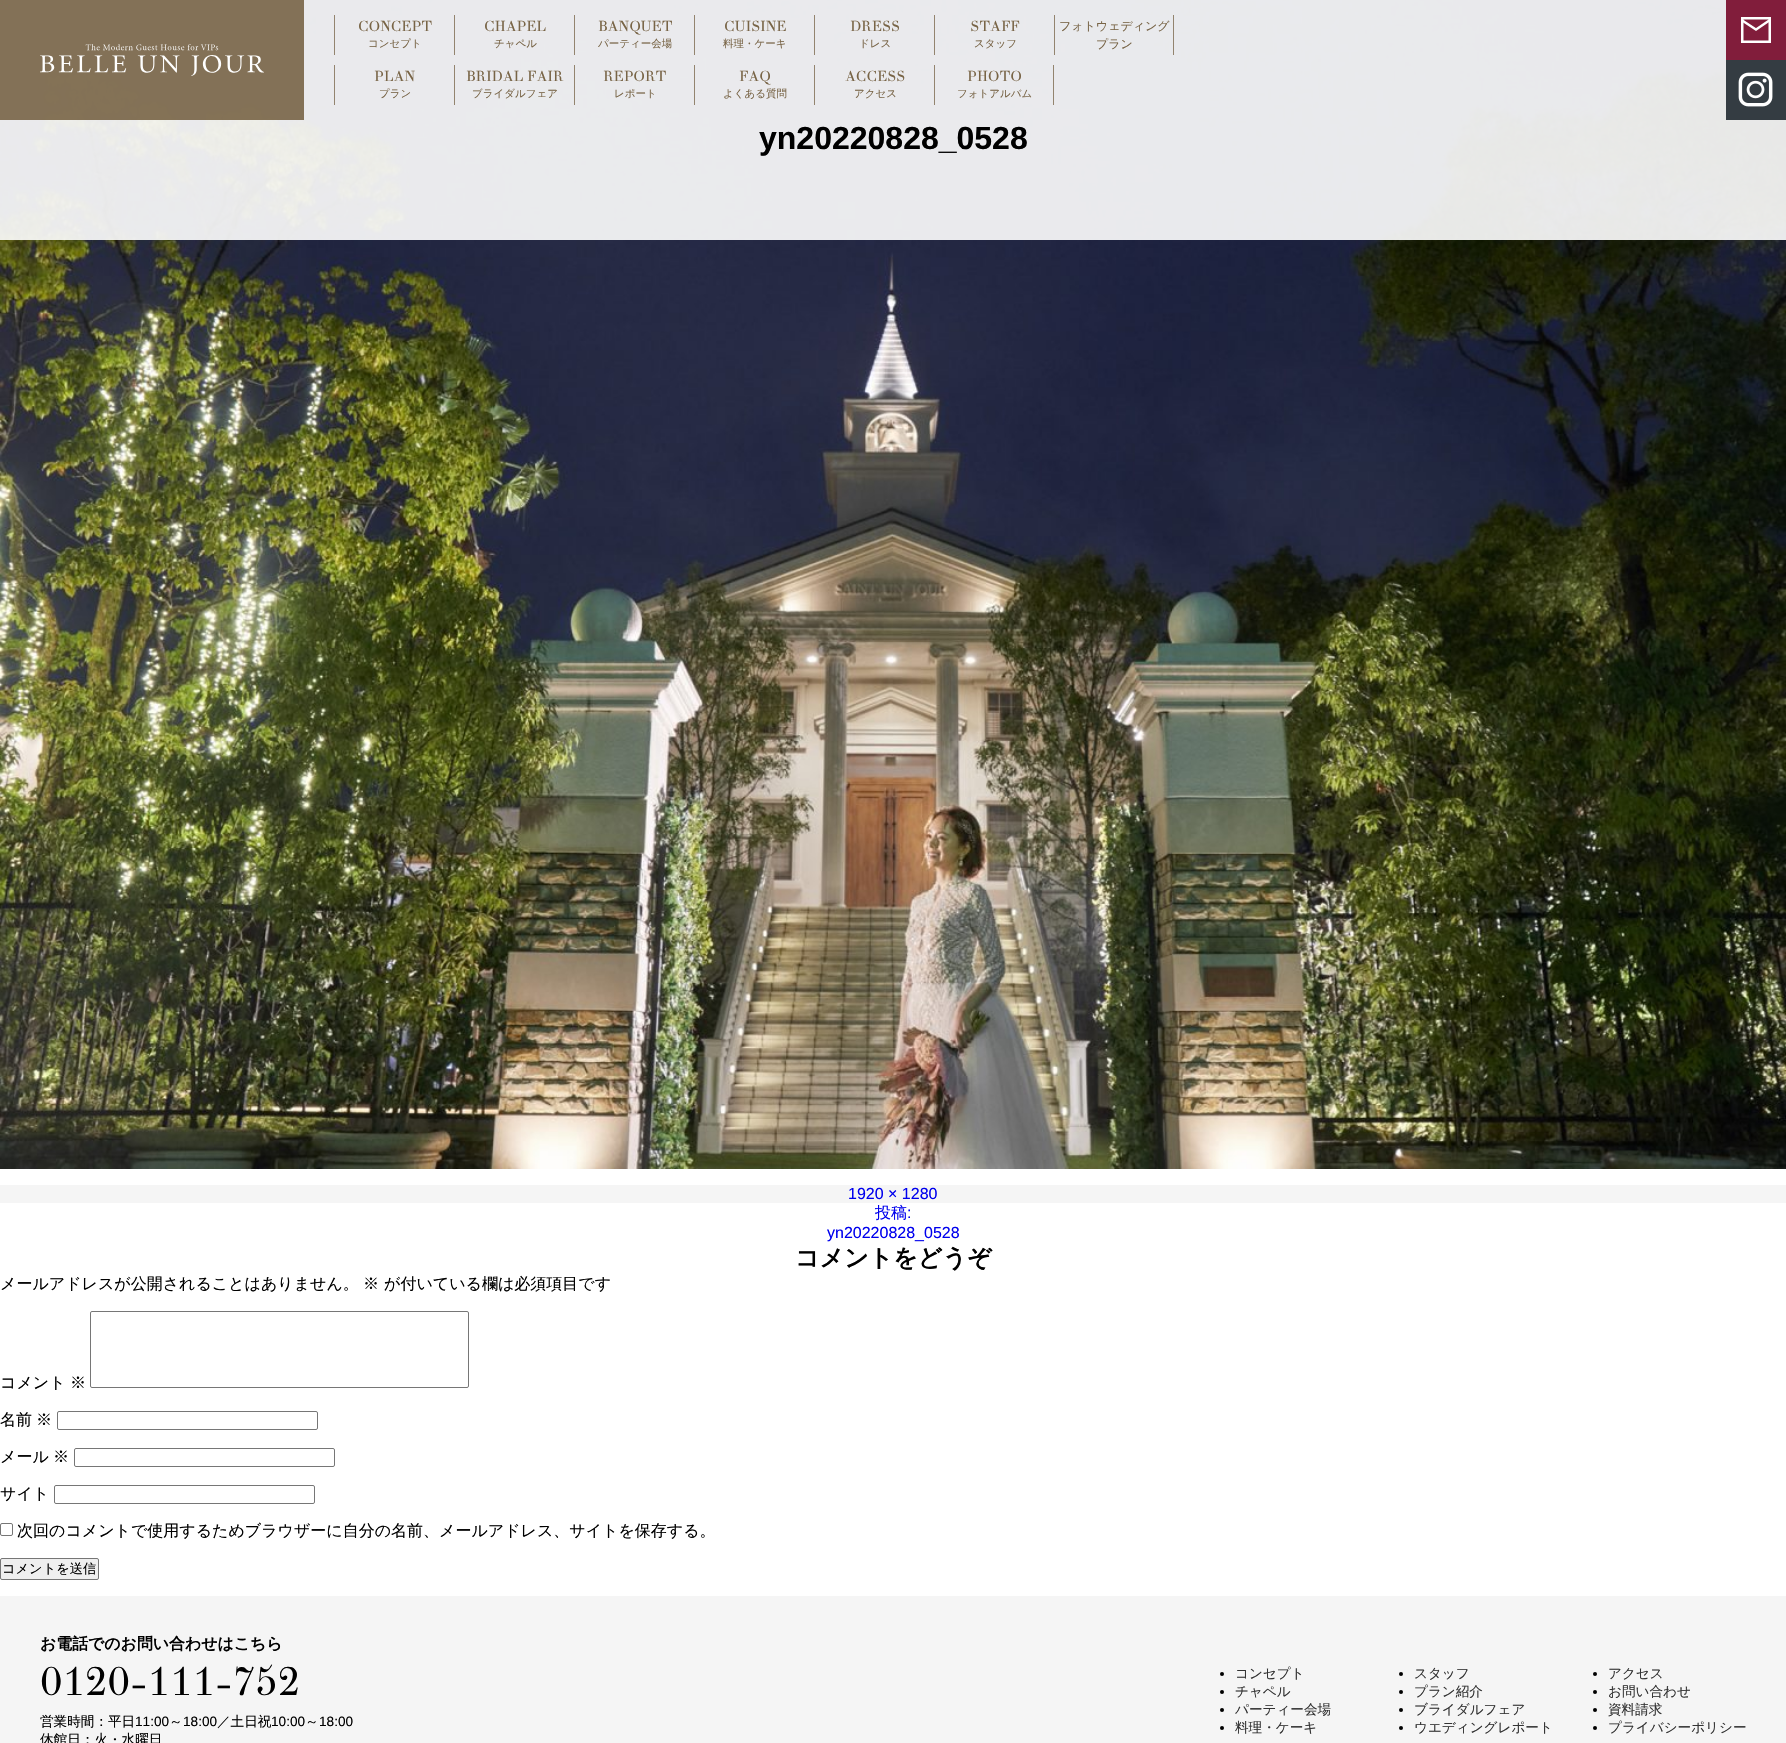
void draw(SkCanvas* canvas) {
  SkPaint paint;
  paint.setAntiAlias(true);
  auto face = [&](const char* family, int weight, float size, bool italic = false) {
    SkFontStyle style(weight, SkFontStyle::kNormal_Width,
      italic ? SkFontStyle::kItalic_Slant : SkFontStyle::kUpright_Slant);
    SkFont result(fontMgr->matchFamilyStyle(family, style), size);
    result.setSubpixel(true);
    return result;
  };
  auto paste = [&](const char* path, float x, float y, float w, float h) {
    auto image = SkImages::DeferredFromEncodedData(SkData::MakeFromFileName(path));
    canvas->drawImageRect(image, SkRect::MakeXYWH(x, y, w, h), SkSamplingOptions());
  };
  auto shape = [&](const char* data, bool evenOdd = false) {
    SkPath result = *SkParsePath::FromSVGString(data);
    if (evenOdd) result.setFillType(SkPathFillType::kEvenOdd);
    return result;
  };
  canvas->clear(0xffffffff);
  paste("img/3.png", 0, 0, 1786, 1169);
  paint.setColor(0xe6ffffff);
  canvas->drawRect(SkRect::MakeXYWH(0, 0, 1726, 120), paint);
  paint.setColor(0xe6786446);
  canvas->drawRect(SkRect::MakeXYWH(0, 0, 304, 120), paint);
  paste("img/1.png", 40, 44, 224, 32);
  {
    const struct { float x, y, w, h; SkColor color; } items[] = {
      {334, 15, 1, 40, 0xff93846f},
      {454, 15, 1, 40, 0xff93846f},
      {574, 15, 1, 40, 0xff93846f},
      {694, 15, 1, 40, 0xff93846f},
      {814, 15, 1, 40, 0xff93846f},
      {934, 15, 1, 40, 0xff93846f},
      {1173, 15, 1, 40, 0xff93846f},
      {1054, 15, 1, 40, 0xff93846f},
      {334, 65, 1, 40, 0xff93846f},
      {454, 65, 1, 40, 0xff93846f},
      {574, 65, 1, 40, 0xff93846f},
      {694, 65, 1, 40, 0xff93846f},
      {814, 65, 1, 40, 0xff93846f},
      {1053, 65, 1, 40, 0xff93846f},
      {934, 65, 1, 40, 0xff93846f},
      {1726, 0, 60, 60, 0xff811d3b},
    };
    for (auto [x, y, w, h, color] : items) {
      paint.setColor(color);
      canvas->drawRect(SkRect::MakeXYWH(x, y, w, h), paint);
    }
  }
  paint.setStroke(true);
  paint.setStrokeWidth(2.5f);
  paint.setColor(0xffffffff);
  canvas->drawRect(SkRect::MakeXYWH(1742.25f, 18.25f, 27.5f, 23.5f), paint);
  paint.setStrokeWidth(2.3f);
  canvas->drawPath(shape("M1741.5 20L1756 29.5L1770 20"), paint);
  paste("img/2.png", 1726, 60, 60, 60);
  paint.setStroke(false);
  paint.setColor(0xe6ffffff);
  canvas->drawRect(SkRect::MakeXYWH(0, 120, 1786, 120), paint);
  paint.setColor(0xfff5f5f5);
  canvas->drawRect(SkRect::MakeXYWH(0, 1185, 1786, 18), paint);
  paint.setStroke(true);
  paint.setStrokeWidth(1);
  paint.setColor(0xff767676);
  canvas->drawRoundRect(SkRect::MakeXYWH(90.5f, 1311.5f, 378, 76), 1.5f, 1.5f, paint);
  canvas->drawRoundRect(SkRect::MakeXYWH(57.5f, 1411.5f, 260, 18), 1.5f, 1.5f, paint);
  canvas->drawRoundRect(SkRect::MakeXYWH(74.5f, 1448.5f, 260, 18), 1.5f, 1.5f, paint);
  canvas->drawRoundRect(SkRect::MakeXYWH(54.5f, 1485.5f, 260, 18), 1.5f, 1.5f, paint);
  canvas->drawRoundRect(SkRect::MakeXYWH(0.5f, 1523.5f, 12, 12), 1.5f, 1.5f, paint);
  paint.setStroke(false);
  paint.setColor(0xffefefef);
  canvas->drawRoundRect(SkRect::MakeXYWH(0.5f, 1558.5f, 98, 21), 1.5f, 1.5f, paint);
  paint.setStroke(true);
  paint.setColor(0xff767676);
  canvas->drawRoundRect(SkRect::MakeXYWH(0.5f, 1558.5f, 98, 21), 1.5f, 1.5f, paint);
  paint.setStroke(false);
  paint.setColor(0xfff5f5f5);
  canvas->drawRect(SkRect::MakeXYWH(0, 1596, 1786, 147), paint);
  paint.setColor(0xff000000);
  canvas->drawCircle(1222, 1674, 2, paint);
  canvas->drawCircle(1222, 1692, 2, paint);
  canvas->drawCircle(1222, 1710, 2, paint);
  canvas->drawCircle(1222, 1728, 2, paint);
  canvas->drawCircle(1401, 1674, 2, paint);
  canvas->drawCircle(1401, 1692, 2, paint);
  canvas->drawCircle(1401, 1710, 2, paint);
  canvas->drawCircle(1401, 1728, 2, paint);
  canvas->drawCircle(1595, 1674, 2, paint);
  canvas->drawCircle(1595, 1692, 2, paint);
  canvas->drawCircle(1595, 1710, 2, paint);
  canvas->drawCircle(1595, 1728, 2, paint);
  auto f0 = face("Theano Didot", 400, 14.5f);
  paint.setColor(0xff786446);
  canvas->drawString("CONCEPT", 358, 31, f0, paint);
  auto f1 = face("WenQuanYi Zen Hei", 500, 10.5f);
  canvas->drawString("コンセプト", 368, 47, f1, paint);
  canvas->drawString("CHAPEL", 484, 31, f0, paint);
  canvas->drawString("チャペル", 494, 47, f1, paint);
  canvas->drawString("BANQUET", 598, 31, f0, paint);
  canvas->drawString("パーティー会場", 598, 47, f1, paint);
  canvas->drawString("CUISINE", 724, 31, f0, paint);
  canvas->drawString("料理・ケーキ", 723, 47, f1, paint);
  canvas->drawString("DRESS", 850, 31, f0, paint);
  canvas->drawString("ドレス", 859, 47, f1, paint);
  canvas->drawString("STAFF", 970, 31, f0, paint);
  canvas->drawString("スタッフ", 974, 47, f1, paint);
  auto f2 = face("WenQuanYi Zen Hei", 500, 12);
  canvas->drawString("フォトウェディング", 1059, 30, f2, paint);
  canvas->drawString("プラン", 1096, 48, f2, paint);
  canvas->drawString("PLAN", 374, 81, f0, paint);
  canvas->drawString("プラン", 379, 97, f1, paint);
  canvas->drawString("BRIDAL FAIR", 466, 81, f0, paint);
  canvas->drawString("ブライダルフェア", 472, 97, f1, paint);
  canvas->drawString("REPORT", 603, 81, f0, paint);
  canvas->drawString("レポート", 614, 97, f1, paint);
  canvas->drawString("FAQ", 739, 81, f0, paint);
  canvas->drawString("よくある質問", 723, 97, f1, paint);
  canvas->drawString("ACCESS", 845, 81, f0, paint);
  canvas->drawString("アクセス", 854, 97, f1, paint);
  canvas->drawString("PHOTO", 967, 81, f0, paint);
  canvas->drawString("フォトアルバム", 957, 97, f1, paint);
  auto f3 = face("Liberation Sans", 700, 32);
  paint.setColor(0xff000000);
  canvas->drawString("yn20220828_0528", 759, 149, f3, paint);
  auto f4 = face("Liberation Sans", 400, 16);
  paint.setColor(0xff0000ee);
  canvas->drawString("1920 × 1280", 848, 1199, f4, paint);
  auto f5 = face("WenQuanYi Zen Hei", 500, 16);
  canvas->drawString("投稿", 875, 1218, f5, paint);
  canvas->drawString(":", 907, 1218, f4, paint);
  canvas->drawString("yn20220828_0528", 827, 1238, f4, paint);
  auto f6 = face("WenQuanYi Zen Hei", 700, 24);
  paint.setColor(0xff000000);
  canvas->drawString("コメントをどうぞ", 795, 1266, f6, paint);
  {
    const struct { const char* s; float x, y; } items[] = {
      {"メールアドレスが公開されることはありません。", 0, 1289},
      {"※", 363, 1289},
      {"が付いている欄は必須項目です", 384, 1289},
      {"コメント", 0, 1388},
      {"※", 70, 1388},
      {"名前", 0, 1425},
      {"※", 36, 1425},
      {"メール", 0, 1462},
      {"※", 53, 1462},
      {"サイト", 0, 1499},
      {"次回のコメントで使用するためブラウザーに自分の名前、メールアドレス、サイトを保存する。", 17, 1536},
    };
    for (auto [s, x, y] : items) {
      canvas->drawString(s, x, y, f5, paint);
    }
  }
  auto f7 = face("WenQuanYi Zen Hei", 500, 13.25f);
  canvas->drawString("コメントを送信", 2, 1573, f7, paint);
  auto f8 = face("WenQuanYi Zen Hei", 700, 15.9f);
  canvas->drawString("お電話でのお問い合わせはこちら", 40, 1649, f8, paint);
  auto f9 = face("Theano Didot", 400, 40);
  canvas->drawString("0120-111-752", 40, 1695, f9, paint);
  auto f10 = face("WenQuanYi Zen Hei", 500, 13.6f);
  canvas->drawString("営業時間：平日", 40, 1726, f10, paint);
  auto f11 = face("Liberation Sans", 400, 13.6f);
  canvas->drawString("11:00", 135, 1726, f11, paint);
  canvas->drawString("～", 169, 1726, f10, paint);
  canvas->drawString("18:00", 183, 1726, f11, paint);
  canvas->drawString("／土日祝", 217, 1726, f10, paint);
  canvas->drawString("10:00", 271, 1726, f11, paint);
  canvas->drawString("～", 305, 1726, f10, paint);
  canvas->drawString("18:00", 319, 1726, f11, paint);
  canvas->drawString("休館日：火・水曜日", 40, 1744, f10, paint);
  paint.setColor(0xff333333);
  {
    const struct { const char* s; float x, y; } items[] = {
      {"コンセプト", 1235, 1678},
      {"チャペル", 1235, 1696},
      {"パーティー会場", 1235, 1714},
      {"料理・ケーキ", 1235, 1732},
      {"スタッフ", 1414, 1678},
      {"プラン紹介", 1414, 1696},
      {"ブライダルフェア", 1414, 1714},
      {"ウエディングレポート", 1414, 1732},
      {"アクセス", 1608, 1678},
      {"お問い合わせ", 1608, 1696},
      {"資料請求", 1608, 1714},
      {"プライバシーポリシー", 1608, 1732},
    };
    for (auto [s, x, y] : items) {
      canvas->drawString(s, x, y, f10, paint);
    }
  }
}
